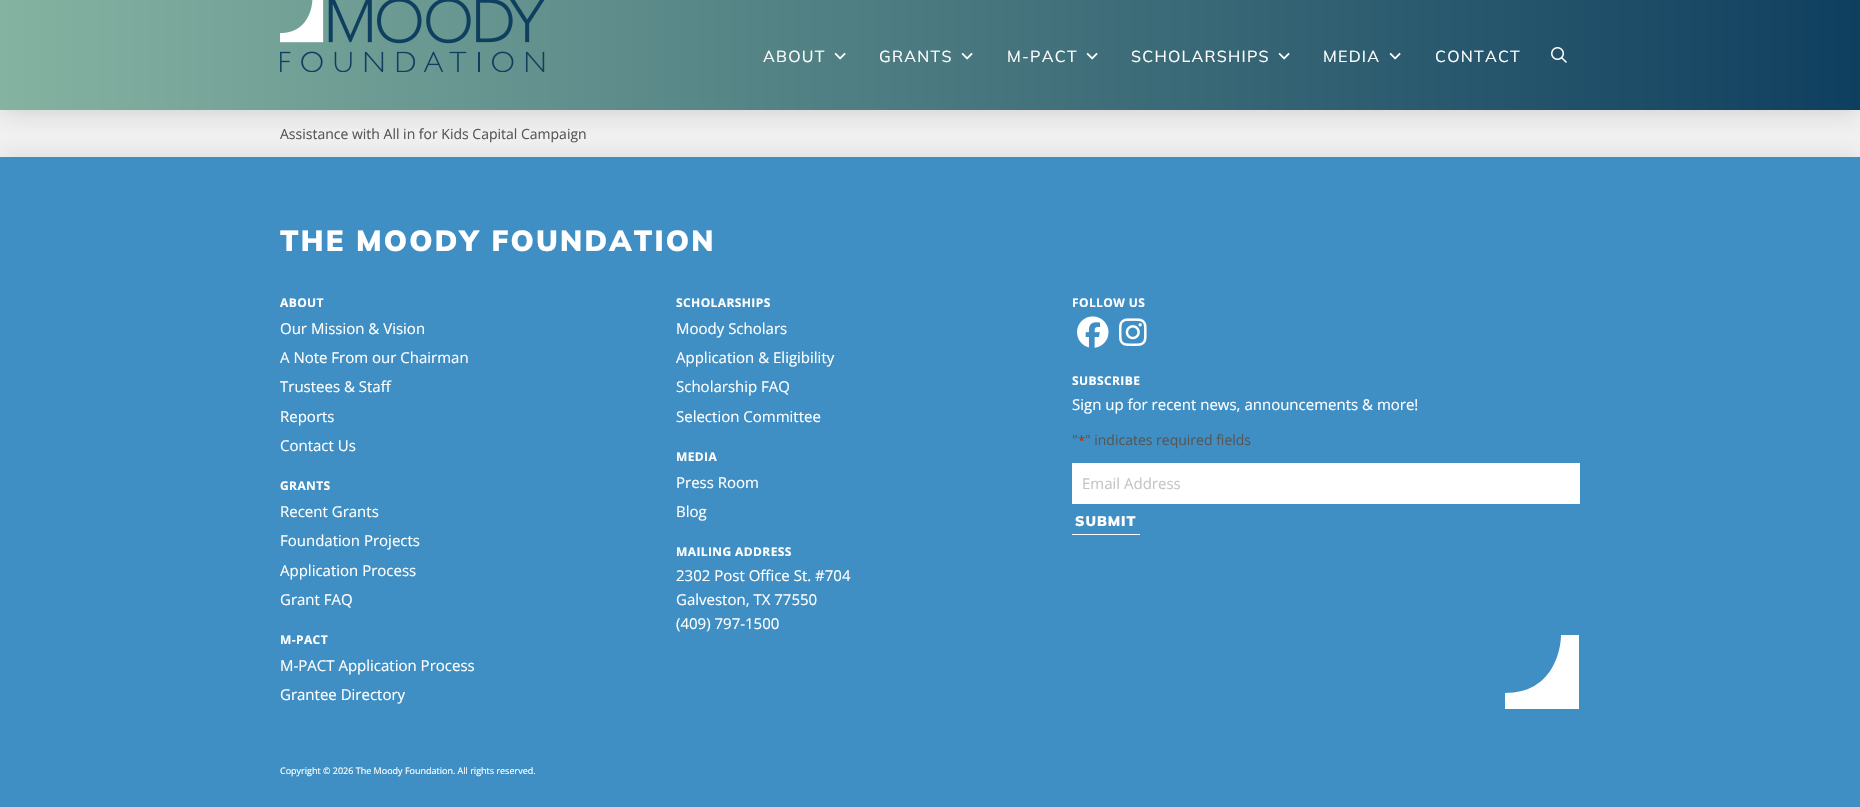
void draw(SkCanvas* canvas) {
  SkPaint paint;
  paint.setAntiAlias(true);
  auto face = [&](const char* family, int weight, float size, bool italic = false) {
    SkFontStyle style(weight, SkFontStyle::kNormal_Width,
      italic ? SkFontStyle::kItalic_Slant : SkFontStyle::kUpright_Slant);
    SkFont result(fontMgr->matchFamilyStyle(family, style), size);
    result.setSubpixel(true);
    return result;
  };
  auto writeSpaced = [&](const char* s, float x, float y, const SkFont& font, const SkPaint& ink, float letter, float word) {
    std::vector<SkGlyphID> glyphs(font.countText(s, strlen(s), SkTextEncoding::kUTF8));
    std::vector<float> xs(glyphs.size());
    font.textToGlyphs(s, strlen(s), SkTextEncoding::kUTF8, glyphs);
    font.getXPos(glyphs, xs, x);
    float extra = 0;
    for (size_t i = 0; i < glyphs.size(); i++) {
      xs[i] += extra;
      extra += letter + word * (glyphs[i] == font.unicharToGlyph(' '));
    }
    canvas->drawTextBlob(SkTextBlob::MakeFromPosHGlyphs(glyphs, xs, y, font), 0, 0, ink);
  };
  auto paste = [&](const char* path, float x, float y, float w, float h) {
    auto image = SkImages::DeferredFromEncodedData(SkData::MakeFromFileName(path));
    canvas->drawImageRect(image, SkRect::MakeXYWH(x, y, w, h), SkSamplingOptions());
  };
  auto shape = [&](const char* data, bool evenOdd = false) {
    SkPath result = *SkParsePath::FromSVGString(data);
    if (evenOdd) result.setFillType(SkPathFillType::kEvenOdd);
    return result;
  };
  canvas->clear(0xfff3f3f3);
  paint.setColor(0x26000000);
  paint.setMaskFilter(SkMaskFilter::MakeBlur(kNormal_SkBlurStyle, 12.5f));
  canvas->drawRect(SkRect::MakeXYWH(0, -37, 1860, 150), paint);
  paint.setMaskFilter(nullptr);
  {
    const SkColor colors[] = {0xff85b3a1, 0xff0f3f5f};
    const float stops[] = {0, 1};
    const SkPoint ends[] = {{0, 35}, {1860, 35}};
    paint.setShader(SkGradientShader::MakeLinear(ends, colors, stops, 2, SkTileMode::kClamp));
    paint.setAlpha(255);
  }
  canvas->drawRect(SkRect::MakeXYWH(0, 0, 1860, 110), paint);
  paste("img/1.png", 280, 0, 265, 72);
  paste("img/2.png", 834, 52, 12, 8);
  paste("img/3.png", 961, 52, 12, 8);
  paste("img/4.png", 1086, 52, 12, 8);
  paste("img/5.png", 1278, 52, 12, 8);
  paste("img/6.png", 1389, 52, 12, 8);
  paste("img/7.png", 1551, 47, 16, 16);
  paint.setShader(nullptr);
  paint.setColor(0x26000000);
  paint.setMaskFilter(SkMaskFilter::MakeBlur(kNormal_SkBlurStyle, 12.5f));
  canvas->drawRect(SkRect::MakeXYWH(0, 160, 1860, 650), paint);
  paint.setMaskFilter(nullptr);
  paint.setColor(0xff3f8fc4);
  canvas->drawRect(SkRect::MakeXYWH(0, 157, 1860, 650), paint);
  paste("img/8.png", 1077, 316, 32, 32);
  paste("img/9.png", 1119, 318, 28, 28);
  paint.setColor(0xffffffff);
  canvas->drawRect(SkRect::MakeXYWH(1072, 463, 508, 41), paint);
  canvas->drawRect(SkRect::MakeXYWH(1072, 534, 68, 1), paint);
  canvas->drawPath(shape("M1561 635H1579V709H1505V693C1555 693 1561 647 1561 635Z"), paint);
  auto f0 = face("Mulish", 400, 16);
  {
    const struct { const char* s; float x, y; } items[] = {
      {"ABOUT", 763, 62},
      {"GRANTS", 879, 62},
      {"M-PACT", 1007, 62},
      {"SCHOLARSHIPS", 1131, 62},
      {"MEDIA", 1323, 62},
      {"CONTACT", 1435, 62},
    };
    for (auto [s, x, y] : items) {
      writeSpaced(s, x, y, f0, paint, 1.25f, 0);
    }
  }
  auto f1 = face("Open Sans", 400, 14);
  paint.setColor(0xff565656);
  canvas->drawString("Assistance with All in for Kids Capital Campaign", 280, 139, f1, paint);
  auto f2 = face("Mulish", 900, 29);
  paint.setColor(0xffffffff);
  writeSpaced("THE MOODY FOUNDATION", 280, 251, f2, paint, 2.2f, 0);
  auto f3 = face("Open Sans", 700, 12);
  writeSpaced("ABOUT", 280, 307, f3, paint, 0.4f, 0);
  auto f4 = face("Open Sans", 400, 15);
  {
    const struct { const char* s; float x, y; } items[] = {
      {"Our Mission & Vision", 280, 334},
      {"A Note From our Chairman", 280, 363},
      {"Trustees & Staff", 280, 392},
      {"Reports", 280, 422},
      {"Contact Us", 280, 451},
    };
    for (auto [s, x, y] : items) {
      canvas->drawString(s, x, y, f4, paint);
    }
  }
  writeSpaced("GRANTS", 280, 490, f3, paint, 0.4f, 0);
  {
    const struct { const char* s; float x, y; } items[] = {
      {"Recent Grants", 280, 517},
      {"Foundation Projects", 280, 546},
      {"Application Process", 280, 576},
      {"Grant FAQ", 280, 605},
    };
    for (auto [s, x, y] : items) {
      canvas->drawString(s, x, y, f4, paint);
    }
  }
  writeSpaced("M-PACT", 280, 644, f3, paint, 0.4f, 0);
  canvas->drawString("M-PACT Application Process", 280, 671, f4, paint);
  canvas->drawString("Grantee Directory", 280, 700, f4, paint);
  writeSpaced("SCHOLARSHIPS", 676, 307, f3, paint, 0.4f, 0);
  {
    const struct { const char* s; float x, y; } items[] = {
      {"Moody Scholars", 676, 334},
      {"Application & Eligibility", 676, 363},
      {"Scholarship FAQ", 676, 392},
      {"Selection Committee", 676, 422},
    };
    for (auto [s, x, y] : items) {
      canvas->drawString(s, x, y, f4, paint);
    }
  }
  writeSpaced("MEDIA", 676, 461, f3, paint, 0.4f, 0);
  canvas->drawString("Press Room", 676, 488, f4, paint);
  canvas->drawString("Blog", 676, 517, f4, paint);
  writeSpaced("MAILING ADDRESS", 676, 556, f3, paint, 0.4f, 0);
  {
    const struct { const char* s; float x, y; } items[] = {
      {"2302 Post Office St. #704", 676, 581},
      {"Galveston, TX 77550", 676, 605},
      {"(409) 797-1500", 676, 629},
    };
    for (auto [s, x, y] : items) {
      canvas->drawString(s, x, y, f4, paint);
    }
  }
  writeSpaced("FOLLOW US", 1072, 307, f3, paint, 0.4f, 0);
  writeSpaced("SUBSCRIBE", 1072, 385, f3, paint, 0.4f, 0);
  canvas->drawString("Sign up for recent news, announcements & more!", 1072, 410, f4, paint);
  paint.setColor(0xff565656);
  canvas->drawString("\"", 1072, 445, f1, paint);
  auto f5 = face("Open Sans", 400, 13);
  paint.setColor(0xffc02b0a);
  canvas->drawString("*", 1078, 445, f5, paint);
  paint.setColor(0xff565656);
  canvas->drawString("\" indicates required fields", 1085, 445, f1, paint);
  paint.setColor(0xffc5c5c5);
  canvas->drawString("Email Address", 1082, 489, f4, paint);
  auto f6 = face("Mulish", 900, 14);
  paint.setColor(0xffffffff);
  writeSpaced("SUBMIT", 1075, 526, f6, paint, 1, 0);
  auto f7 = face("Open Sans", 400, 9);
  canvas->drawString("Copyright © 2026 The Moody Foundation. All rights reserved.", 280, 774, f7, paint);
}
